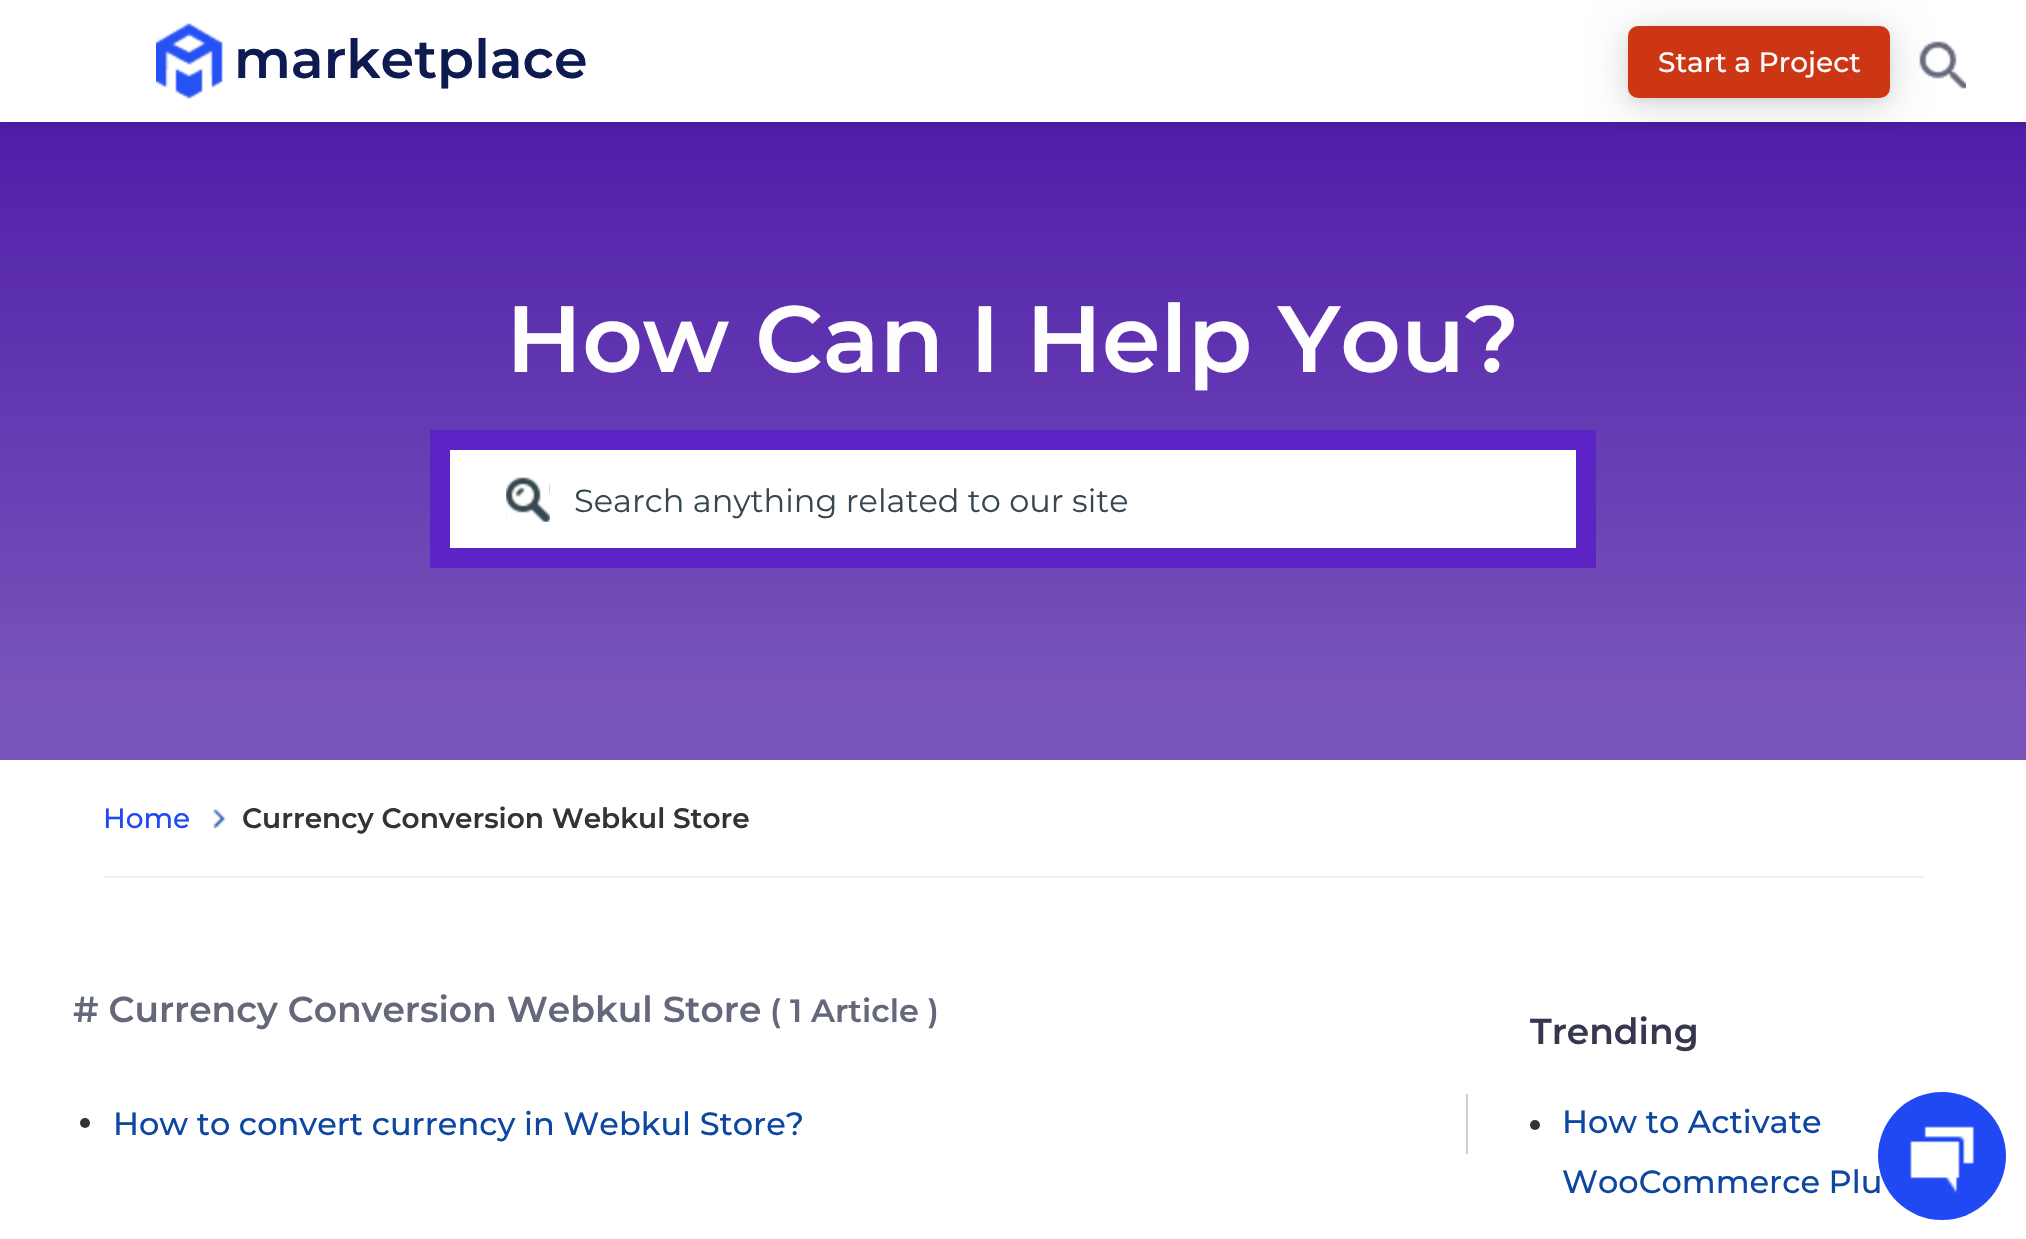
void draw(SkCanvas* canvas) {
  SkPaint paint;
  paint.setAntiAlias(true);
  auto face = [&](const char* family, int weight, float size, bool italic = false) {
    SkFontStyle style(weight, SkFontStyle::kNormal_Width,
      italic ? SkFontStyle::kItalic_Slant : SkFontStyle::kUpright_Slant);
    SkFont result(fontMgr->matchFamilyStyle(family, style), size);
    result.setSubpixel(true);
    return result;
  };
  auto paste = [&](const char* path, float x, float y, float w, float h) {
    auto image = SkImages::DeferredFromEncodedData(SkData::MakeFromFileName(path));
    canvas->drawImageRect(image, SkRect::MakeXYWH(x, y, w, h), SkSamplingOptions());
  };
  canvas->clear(0xffffffff);
  {
    const SkColor colors[] = {0xff7954bb, 0xff4f1ea9};
    const float stops[] = {0.1f, 1};
    const SkPoint ends[] = {{1013, 760}, {1013, 122}};
    paint.setShader(SkGradientShader::MakeLinear(ends, colors, stops, 2, SkTileMode::kClamp));
    paint.setAlpha(255);
  }
  canvas->drawRect(SkRect::MakeXYWH(0, 122, 2026, 638), paint);
  canvas->save();
  canvas->clipRect(SkRect::MakeXYWH(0, 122, 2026, 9));
  paint.setShader(nullptr);
  paint.setColor(0x29000000);
  paint.setMaskFilter(SkMaskFilter::MakeBlur(kNormal_SkBlurStyle, 8));
  canvas->drawRect(SkRect::MakeXYWH(0, 0, 2026, 122), paint);
  paint.setMaskFilter(nullptr);
  canvas->restore();
  paste("img/1.png", 156, 23, 67, 76);
  paint.setColor(0x26000000);
  paint.setMaskFilter(SkMaskFilter::MakeBlur(kNormal_SkBlurStyle, 19));
  canvas->drawRoundRect(SkRect::MakeXYWH(1626, 30, 266, 76), 12, 12, paint);
  paint.setMaskFilter(nullptr);
  paint.setColor(0x0d000000);
  paint.setMaskFilter(SkMaskFilter::MakeBlur(kNormal_SkBlurStyle, 3));
  canvas->drawRoundRect(SkRect::MakeXYWH(1628, 30, 262, 72), 10, 10, paint);
  paint.setMaskFilter(nullptr);
  paint.setColor(0xffcd3614);
  canvas->drawRoundRect(SkRect::MakeXYWH(1628, 26, 262, 72), 10, 10, paint);
  paste("img/2.png", 1919, 41, 47, 48);
  paint.setStroke(true);
  paint.setStrokeWidth(20);
  paint.setColor(0xff5d24c5);
  canvas->drawRect(SkRect::MakeXYWH(440, 440, 1146, 118), paint);
  paint.setStroke(false);
  paint.setColor(0xffffffff);
  canvas->drawRect(SkRect::MakeXYWH(450, 450, 1126, 98), paint);
  paste("img/3.png", 506, 477, 44, 45);
  paste("img/4.png", 213, 809, 13, 19);
  paint.setColor(0xffeeeeee);
  canvas->drawRect(SkRect::MakeXYWH(104, 876, 1820, 2), paint);
  paint.setColor(0xffcdcdcd);
  canvas->drawRect(SkRect::MakeXYWH(1466, 1094, 2, 60), paint);
  paint.setColor(0xff333333);
  canvas->drawCircle(85, 1123, 5, paint);
  canvas->drawCircle(1535, 1125, 5, paint);
  auto f0 = face("Montserrat", 600, 54);
  paint.setColor(0xff0e1b51);
  canvas->drawString("marketplace", 234, 78, f0, paint);
  auto f1 = face("Montserrat", 500, 28);
  paint.setColor(0xfffefefe);
  canvas->drawString("Start a Project", 1658, 72, f1, paint);
  auto f2 = face("Montserrat", 600, 94);
  canvas->drawString("How Can I Help You?", 506, 372, f2, paint);
  auto f3 = face("Montserrat", 400, 32);
  paint.setColor(0xff37474f);
  canvas->drawString("Search anything related to our site", 574, 512, f3, paint);
  paint.setColor(0xff2149f3);
  canvas->drawString("Home", 103, 828, f1, paint);
  auto f4 = face("Montserrat", 600, 28);
  paint.setColor(0xff333333);
  canvas->drawString("Currency Conversion Webkul Store", 242, 828, f4, paint);
  auto f5 = face("Montserrat", 600, 36);
  paint.setColor(0xff64687a);
  canvas->drawString("# Currency Conversion Webkul Store", 73, 1022, f5, paint);
  auto f6 = face("Montserrat", 600, 32);
  canvas->drawString("( 1 Article )", 770, 1022, f6, paint);
  auto f7 = face("Montserrat", 500, 32);
  paint.setColor(0xff0d47a1);
  canvas->drawString("How to convert currency in Webkul Store?", 113, 1135, f7, paint);
  paint.setColor(0xff37374f);
  canvas->drawString("Trending", 1530, 1044, f5, paint);
  paint.setColor(0xff0d47a1);
  canvas->drawString("How to Activate", 1562, 1133, f7, paint);
  canvas->drawString("WooCommerce Plu", 1562, 1193, f7, paint);
  paint.setColor(0xff2149f3);
  canvas->drawCircle(1942, 1156, 64, paint);
  paste("img/5.png", 1910, 1126, 64, 67);
}
